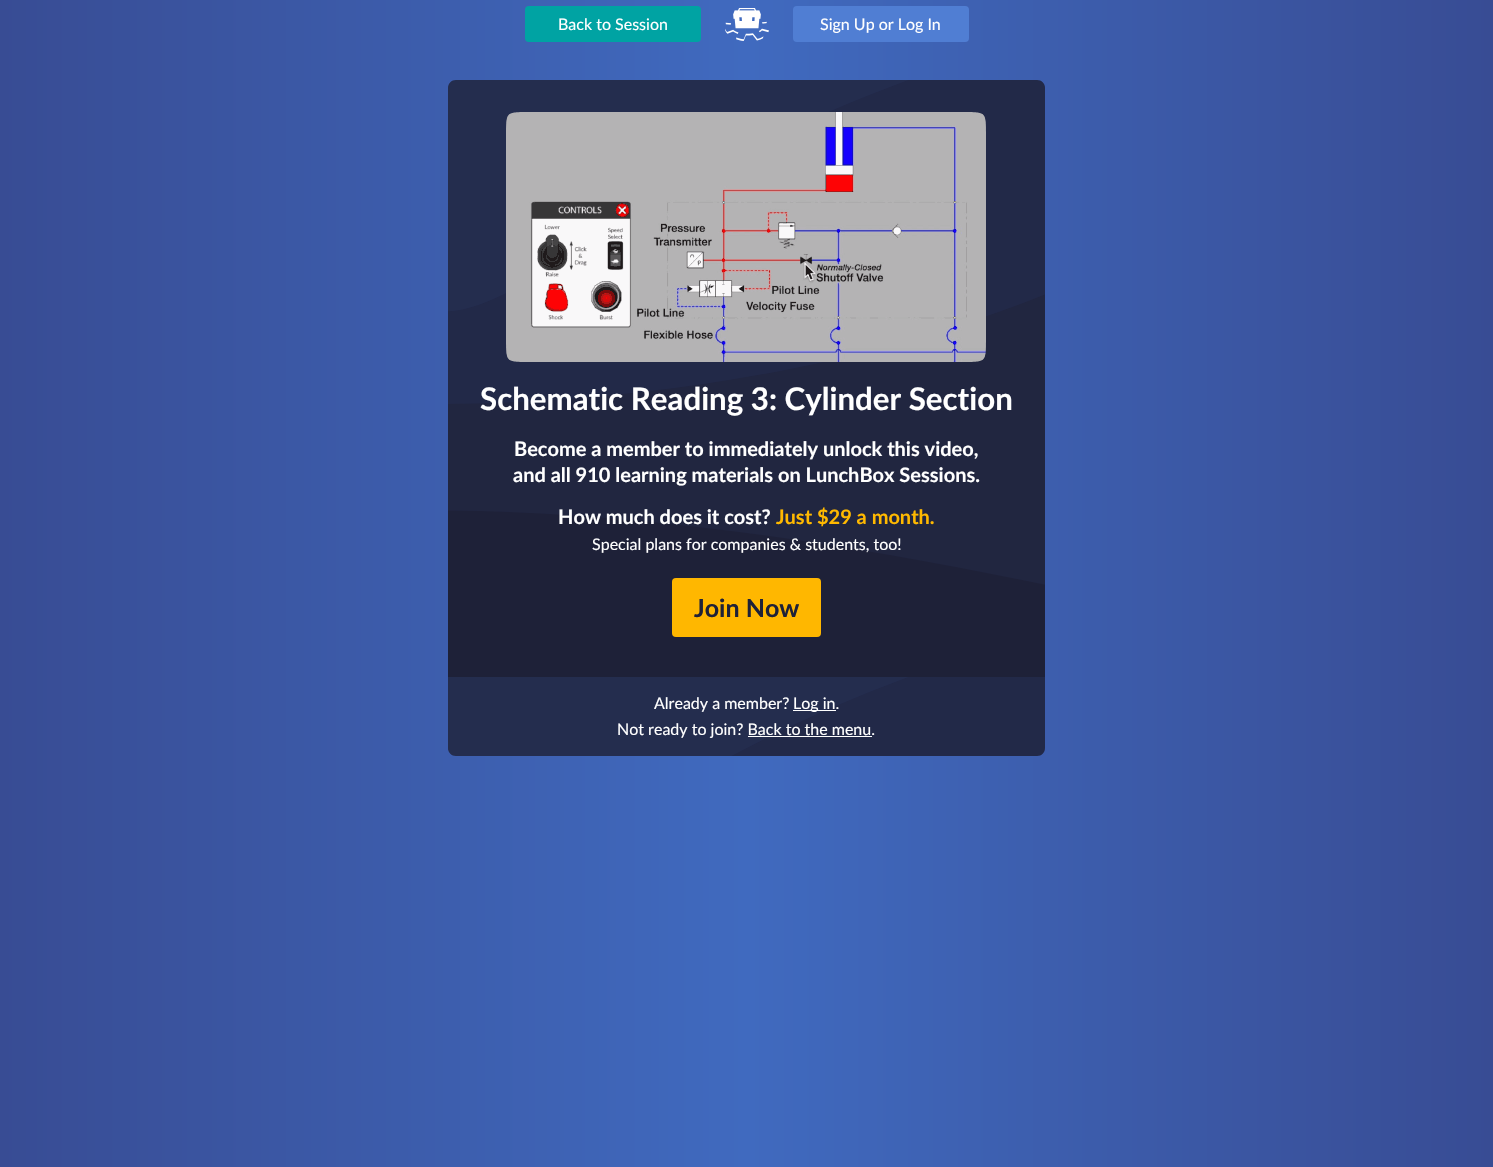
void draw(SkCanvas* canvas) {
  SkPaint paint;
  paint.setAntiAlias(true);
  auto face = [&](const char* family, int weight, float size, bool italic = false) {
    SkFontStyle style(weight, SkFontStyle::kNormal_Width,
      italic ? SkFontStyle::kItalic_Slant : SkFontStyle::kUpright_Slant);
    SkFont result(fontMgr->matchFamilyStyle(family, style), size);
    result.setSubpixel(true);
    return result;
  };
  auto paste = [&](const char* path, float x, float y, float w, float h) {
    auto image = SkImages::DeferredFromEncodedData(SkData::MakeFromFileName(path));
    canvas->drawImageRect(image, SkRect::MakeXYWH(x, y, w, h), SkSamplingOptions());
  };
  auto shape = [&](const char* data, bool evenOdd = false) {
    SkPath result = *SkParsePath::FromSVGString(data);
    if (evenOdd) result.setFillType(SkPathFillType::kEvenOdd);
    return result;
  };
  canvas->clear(0xffffffff);
  {
    const SkColor colors[] = {0xff384c94, 0xff406abf, 0xff384c94};
    const float stops[] = {0, 0.5f, 1};
    const SkPoint ends[] = {{0, 584}, {1493, 584}};
    paint.setShader(SkGradientShader::MakeLinear(ends, colors, stops, 3, SkTileMode::kClamp));
    paint.setAlpha(255);
  }
  canvas->drawRect(SkRect::MakeXYWH(0, 0, 1493, 1167), paint);
  paint.setShader(nullptr);
  paint.setColor(0xff00a3a3);
  canvas->drawRoundRect(SkRect::MakeXYWH(525, 6, 176, 36), 4, 4, paint);
  paste("img/1.png", 725, 8, 44, 33);
  paint.setColor(0xff507ed3);
  canvas->drawRoundRect(SkRect::MakeXYWH(793, 6, 176, 36), 4, 4, paint);
  paint.setColor(0xff1e2138);
  canvas->drawPath(shape("M456 80H1037C1041.5 80 1045 83.5 1045 88V677H448V88C448 83.5 451.5 80 456 80Z"), paint);
  paste("img/2.png", 448, 80, 597, 505);
  paste("img/3.png", 506, 112, 480, 250);
  paint.setColor(0xffffb700);
  canvas->drawRoundRect(SkRect::MakeXYWH(672, 578, 149, 59), 4, 4, paint);
  paint.setColor(0xff1e2138);
  canvas->drawPath(shape("M448 677H1045V748C1045 752.5 1041.5 756 1037 756H456C451.5 756 448 752.5 448 748Z"), paint);
  paste("img/4.png", 448, 677, 597, 79);
  paint.setColor(0xffffffff);
  canvas->drawRect(SkRect::MakeXYWH(793, 710, 43, 1), paint);
  canvas->drawRect(SkRect::MakeXYWH(748, 736, 124, 1), paint);
  auto f0 = face("Lato", 400, 16);
  canvas->drawString("Back to Session", 558, 30, f0, paint);
  canvas->drawString("Sign Up or Log In", 820, 30, f0, paint);
  auto f1 = face("Lato", 700, 31.25f);
  canvas->drawString("Schematic Reading 3: Cylinder Section", 480, 410, f1, paint);
  auto f2 = face("Lato", 700, 20);
  {
    const struct { const char* s; float x, y; } items[] = {
      {"Become a member to immediately unlock this video,", 514, 456},
      {"and all 910 learning materials on LunchBox Sessions.", 513, 482},
      {"How much does it cost?", 558, 524},
    };
    for (auto [s, x, y] : items) {
      canvas->drawString(s, x, y, f2, paint);
    }
  }
  paint.setColor(0xffffb900);
  canvas->drawString("Just $29 a month.", 776, 524, f2, paint);
  paint.setColor(0xffffffff);
  canvas->drawString("Special plans for companies & students, too!", 592, 550, f0, paint);
  auto f3 = face("Lato", 700, 25);
  paint.setColor(0xff1e2138);
  canvas->drawString("Join Now", 694, 617, f3, paint);
  paint.setColor(0xffffffff);
  {
    const struct { const char* s; float x, y; } items[] = {
      {"Already a member?", 654, 709},
      {"Log in.", 793, 709},
      {"Not ready to join? Back to the menu.", 617, 735},
    };
    for (auto [s, x, y] : items) {
      canvas->drawString(s, x, y, f0, paint);
    }
  }
}
